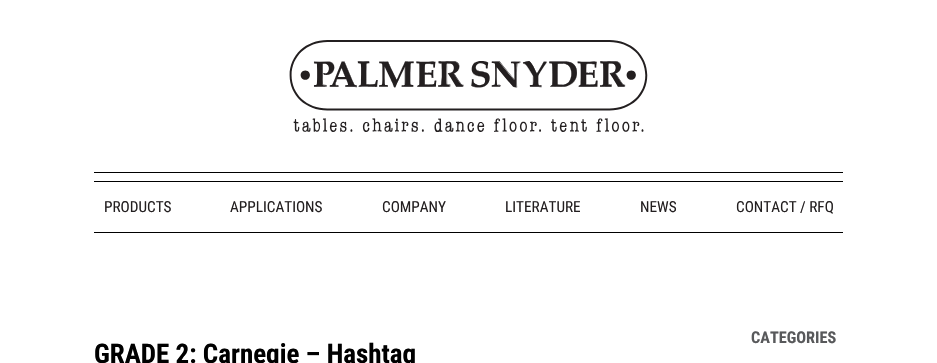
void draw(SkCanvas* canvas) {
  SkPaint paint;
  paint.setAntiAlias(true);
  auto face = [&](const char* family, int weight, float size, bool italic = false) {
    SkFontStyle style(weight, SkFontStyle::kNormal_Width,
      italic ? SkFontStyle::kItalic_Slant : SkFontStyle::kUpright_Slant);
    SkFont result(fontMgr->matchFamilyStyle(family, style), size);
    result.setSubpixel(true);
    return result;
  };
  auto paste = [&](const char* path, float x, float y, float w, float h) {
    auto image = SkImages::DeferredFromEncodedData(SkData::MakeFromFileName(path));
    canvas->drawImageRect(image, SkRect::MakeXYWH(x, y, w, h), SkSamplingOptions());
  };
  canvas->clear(0xffffffff);
  paste("img/1.png", 289, 40, 359, 92);
  {
    const struct { float x, y, w, h; SkColor color; } items[] = {
      {94, 172, 749, 1, 0xff000000},
      {94, 181, 749, 1, 0xff000000},
      {94, 232, 749, 1, 0xff000000},
    };
    for (auto [x, y, w, h, color] : items) {
      paint.setColor(color);
      canvas->drawRect(SkRect::MakeXYWH(x, y, w, h), paint);
    }
  }
  auto f0 = face("Roboto Condensed", 400, 15.25f);
  paint.setColor(0xff231f20);
  {
    const struct { const char* s; float x, y; } items[] = {
      {"PRODUCTS", 104, 212},
      {"APPLICATIONS", 230, 212},
      {"COMPANY", 382, 212},
      {"LITERATURE", 505, 212},
      {"NEWS", 640, 212},
      {"CONTACT / RFQ", 736, 212},
    };
    for (auto [s, x, y] : items) {
      canvas->drawString(s, x, y, f0, paint);
    }
  }
  auto f1 = face("Roboto Condensed", 700, 16.25f);
  paint.setColor(0xff58595b);
  canvas->drawString("CATEGORIES", 751, 343, f1, paint);
  auto f2 = face("Roboto Condensed", 700, 27);
  paint.setColor(0xff000000);
  canvas->drawString("GRADE 2: Carnegie – Hashtag", 94, 363, f2, paint);
}
